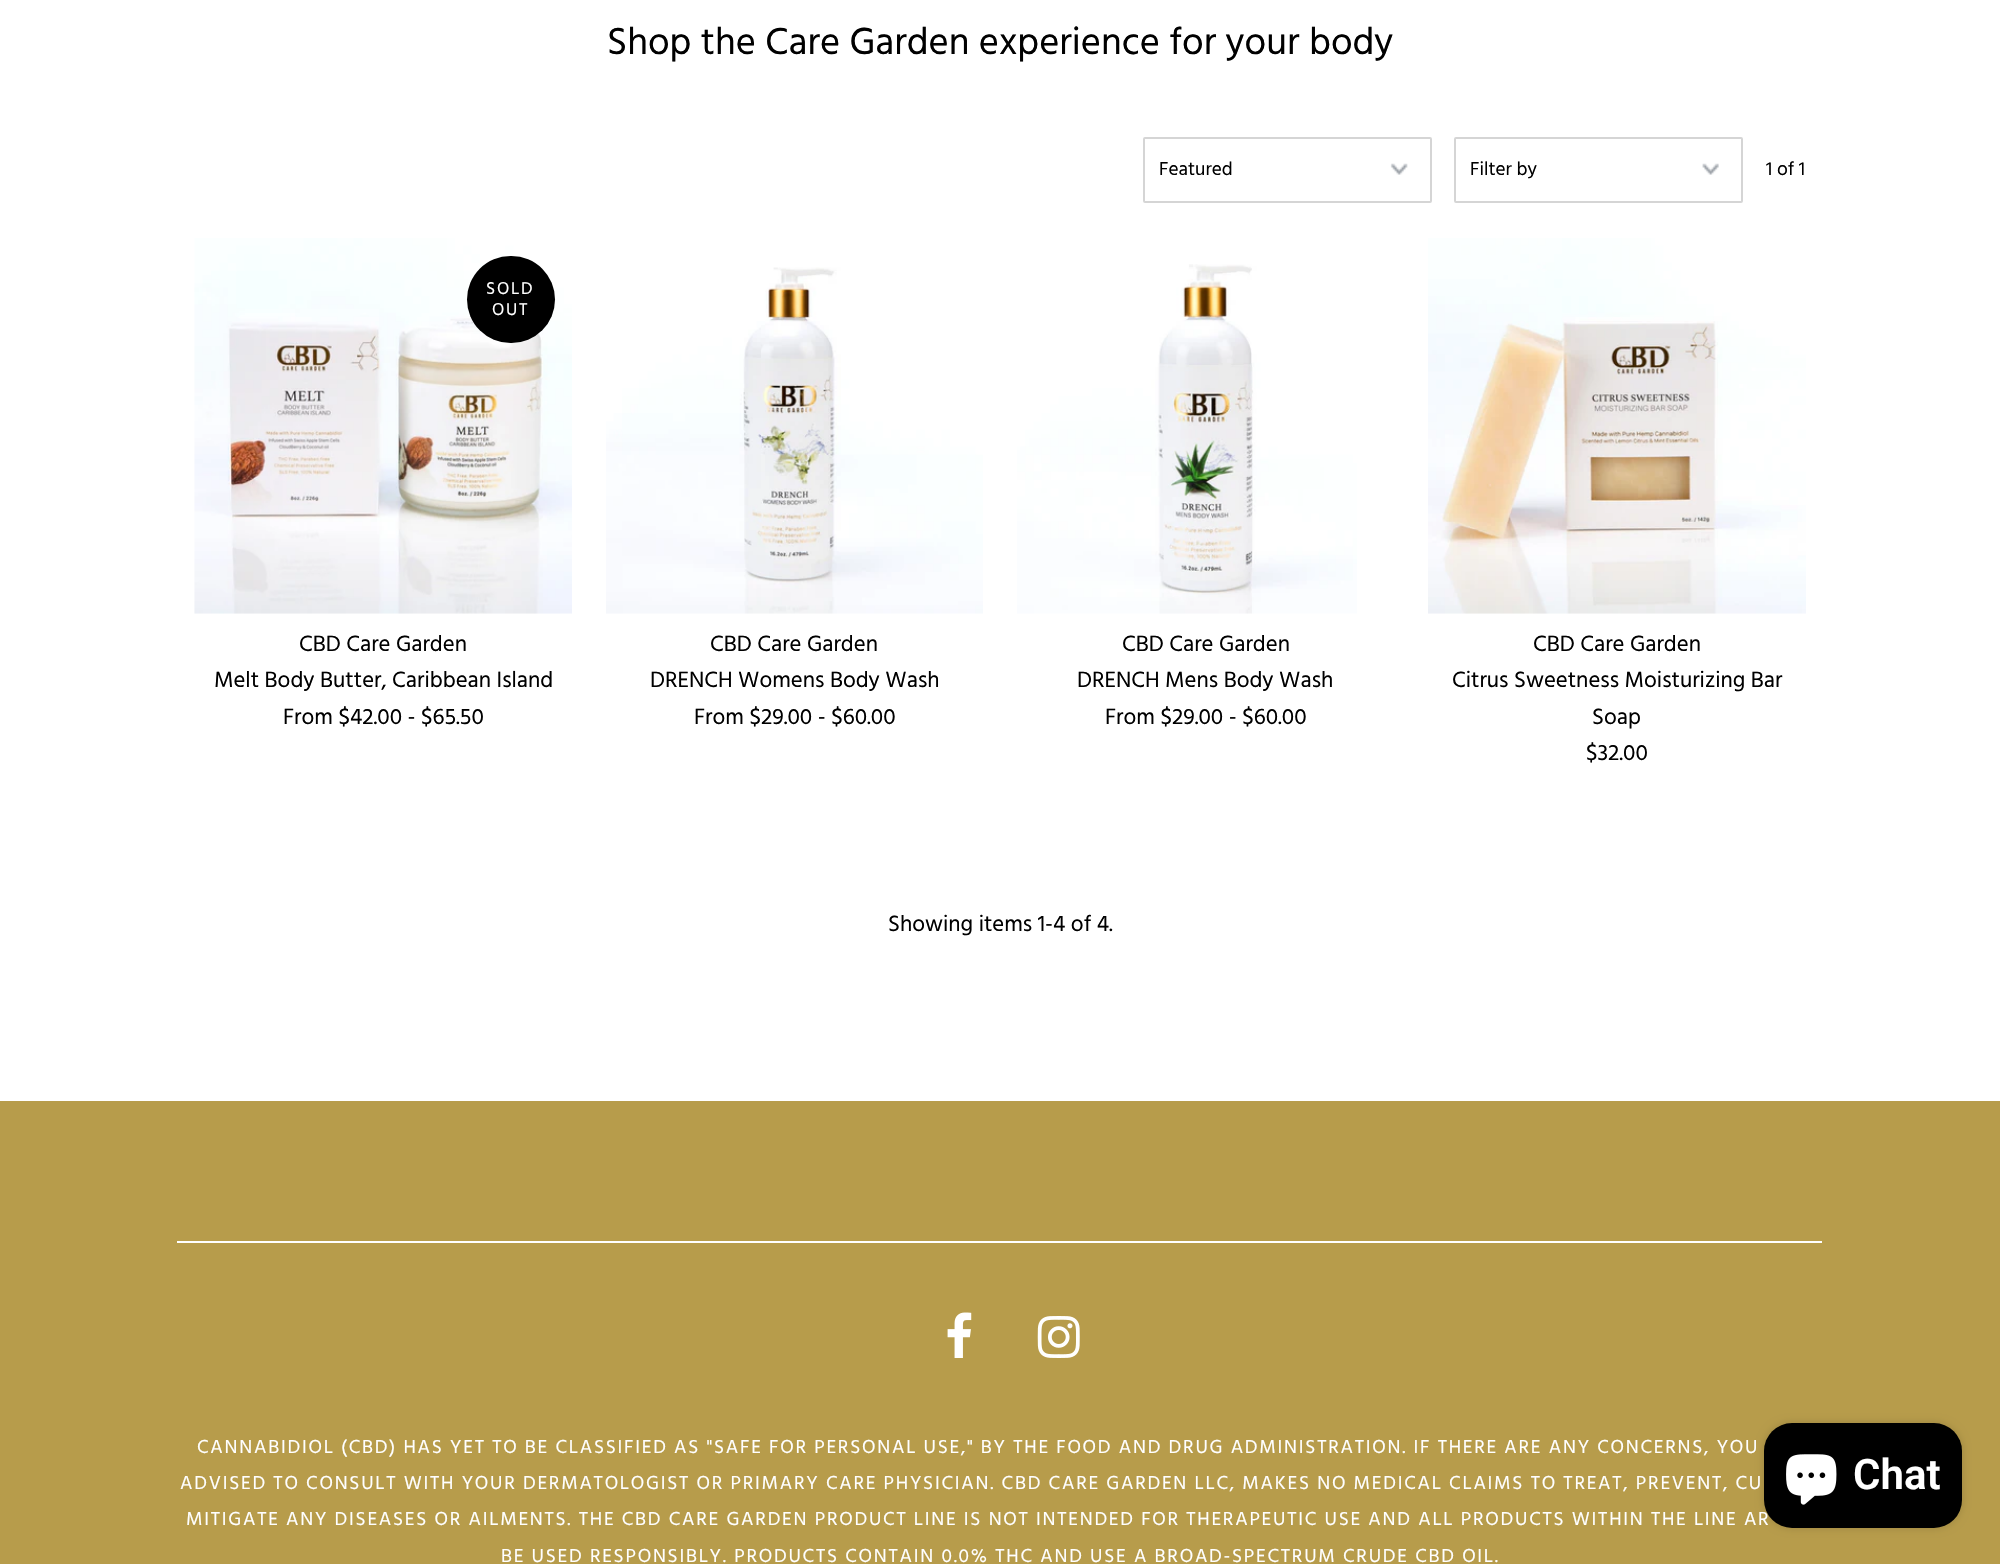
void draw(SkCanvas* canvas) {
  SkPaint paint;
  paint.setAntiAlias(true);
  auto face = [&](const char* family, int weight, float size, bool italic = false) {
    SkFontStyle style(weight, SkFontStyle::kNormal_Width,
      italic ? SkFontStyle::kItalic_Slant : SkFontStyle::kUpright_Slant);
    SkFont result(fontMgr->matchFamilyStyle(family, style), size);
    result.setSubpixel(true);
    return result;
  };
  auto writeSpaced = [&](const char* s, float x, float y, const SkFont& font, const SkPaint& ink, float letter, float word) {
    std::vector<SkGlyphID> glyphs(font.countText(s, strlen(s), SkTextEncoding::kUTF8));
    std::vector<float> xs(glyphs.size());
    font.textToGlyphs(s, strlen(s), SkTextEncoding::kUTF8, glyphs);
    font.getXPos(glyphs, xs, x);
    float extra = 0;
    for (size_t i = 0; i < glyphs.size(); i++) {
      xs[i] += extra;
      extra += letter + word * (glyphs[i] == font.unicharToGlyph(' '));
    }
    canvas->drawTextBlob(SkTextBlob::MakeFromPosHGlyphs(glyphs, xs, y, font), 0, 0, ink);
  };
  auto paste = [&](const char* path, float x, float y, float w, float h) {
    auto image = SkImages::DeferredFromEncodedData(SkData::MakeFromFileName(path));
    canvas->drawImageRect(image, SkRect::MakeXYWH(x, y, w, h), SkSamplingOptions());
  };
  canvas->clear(0xffffffff);
  paste("img/1.png", 1390, 163, 18, 12);
  paint.setStroke(true);
  paint.setStrokeWidth(2);
  paint.setColor(0xffd5d5d5);
  canvas->drawRoundRect(SkRect::MakeXYWH(1144, 138, 287, 64), 1, 1, paint);
  paste("img/2.png", 1702, 163, 17, 12);
  canvas->drawRoundRect(SkRect::MakeXYWH(1455, 138, 287, 64), 1, 1, paint);
  paste("img/3.png", 194, 238, 378, 376);
  paint.setStroke(false);
  paint.setColor(0xff000000);
  canvas->drawRoundRect(SkRect::MakeXYWH(467, 256, 88, 87), 43.5f, 43.5f, paint);
  paste("img/4.png", 606, 267, 377, 347);
  paste("img/5.png", 1017, 264, 340, 350);
  paste("img/6.png", 1428, 238, 378, 376);
  paint.setColor(0xffb79c4b);
  canvas->drawRect(SkRect::MakeXYWH(0, 1101, 2000, 463), paint);
  paint.setColor(0xffffffff);
  canvas->drawRect(SkRect::MakeXYWH(177, 1241, 1645, 2), paint);
  paste("img/7.png", 947, 1312, 25, 46);
  paste("img/8.png", 1037, 1316, 43, 42);
  paint.setColor(0x26000000);
  paint.setMaskFilter(SkMaskFilter::MakeBlur(kNormal_SkBlurStyle, 4.5f));
  canvas->drawRoundRect(SkRect::MakeXYWH(1764, 1423, 198, 105), 28, 28, paint);
  paint.setMaskFilter(nullptr);
  auto f0 = face("Hind", 400, 38.5f);
  paint.setColor(0xff000000);
  canvas->drawString("Shop the Care Garden experience for your body", 607, 54, f0, paint);
  auto f1 = face("Hind", 400, 19.25f);
  {
    const struct { const char* s; float x, y; } items[] = {
      {"Featured", 1159, 175},
      {"Filter by", 1470, 175},
      {"1 of 1", 1766, 175},
    };
    for (auto [s, x, y] : items) {
      canvas->drawString(s, x, y, f1, paint);
    }
  }
  auto f2 = face("Hind", 400, 17.5f);
  paint.setColor(0xffffffff);
  writeSpaced("SOLD", 486, 294, f2, paint, 1.75f, 0);
  writeSpaced("OUT", 492, 315, f2, paint, 1.75f, 0);
  auto f3 = face("Hind", 400, 22.75f);
  paint.setColor(0xff000000);
  {
    const struct { const char* s; float x, y; } items[] = {
      {"CBD Care Garden", 299, 651},
      {"Melt Body Butter, Caribbean Island", 214, 687},
      {"From $42.00 - $65.50", 283, 724},
      {"CBD Care Garden", 710, 651},
      {"DRENCH Womens Body Wash", 650, 687},
      {"From $29.00 - $60.00", 694, 724},
      {"CBD Care Garden", 1122, 651},
      {"DRENCH Mens Body Wash", 1077, 687},
      {"From $29.00 - $60.00", 1105, 724},
      {"CBD Care Garden", 1533, 651},
      {"Citrus Sweetness Moisturizing Bar", 1452, 687},
      {"Soap", 1592, 724},
      {"$32.00", 1586, 760},
      {"Showing items 1-4 of 4.", 888, 931},
    };
    for (auto [s, x, y] : items) {
      canvas->drawString(s, x, y, f3, paint);
    }
  }
  paint.setColor(0xffffffff);
  {
    const struct { const char* s; float x, y; } items[] = {
      {"CANNABIDIOL (CBD) HAS YET TO BE CLASSIFIED AS \"SAFE FOR PERSONAL USE,\" BY THE FOOD AND DRUG ADMINISTRATION. IF THERE ARE ANY CONCERNS, YOU", 197, 1453},
      {"ADVISED TO CONSULT WITH YOUR DERMATOLOGIST OR PRIMARY CARE PHYSICIAN. CBD CARE GARDEN LLC, MAKES NO MEDICAL CLAIMS TO TREAT, PREVENT, CU", 180, 1489},
      {"MITIGATE ANY DISEASES OR AILMENTS. THE CBD CARE GARDEN PRODUCT LINE IS NOT INTENDED FOR THERAPEUTIC USE AND ALL PRODUCTS WITHIN THE LINE AR", 186, 1525},
      {"BE USED RESPONSIBLY. PRODUCTS CONTAIN 0.0% THC AND USE A BROAD-SPECTRUM CRUDE CBD OIL.", 501, 1562},
    };
    for (auto [s, x, y] : items) {
      writeSpaced(s, x, y, f1, paint, 1.75f, 0);
    }
  }
  paint.setColor(0xff000000);
  canvas->drawRoundRect(SkRect::MakeXYWH(1764, 1423, 198, 105), 28, 28, paint);
  paste("img/9.png", 1786, 1454, 51, 51);
  auto f4 = face("Roboto", 600, 42);
  paint.setColor(0xffffffff);
  canvas->drawString("Chat", 1853, 1489, f4, paint);
}
